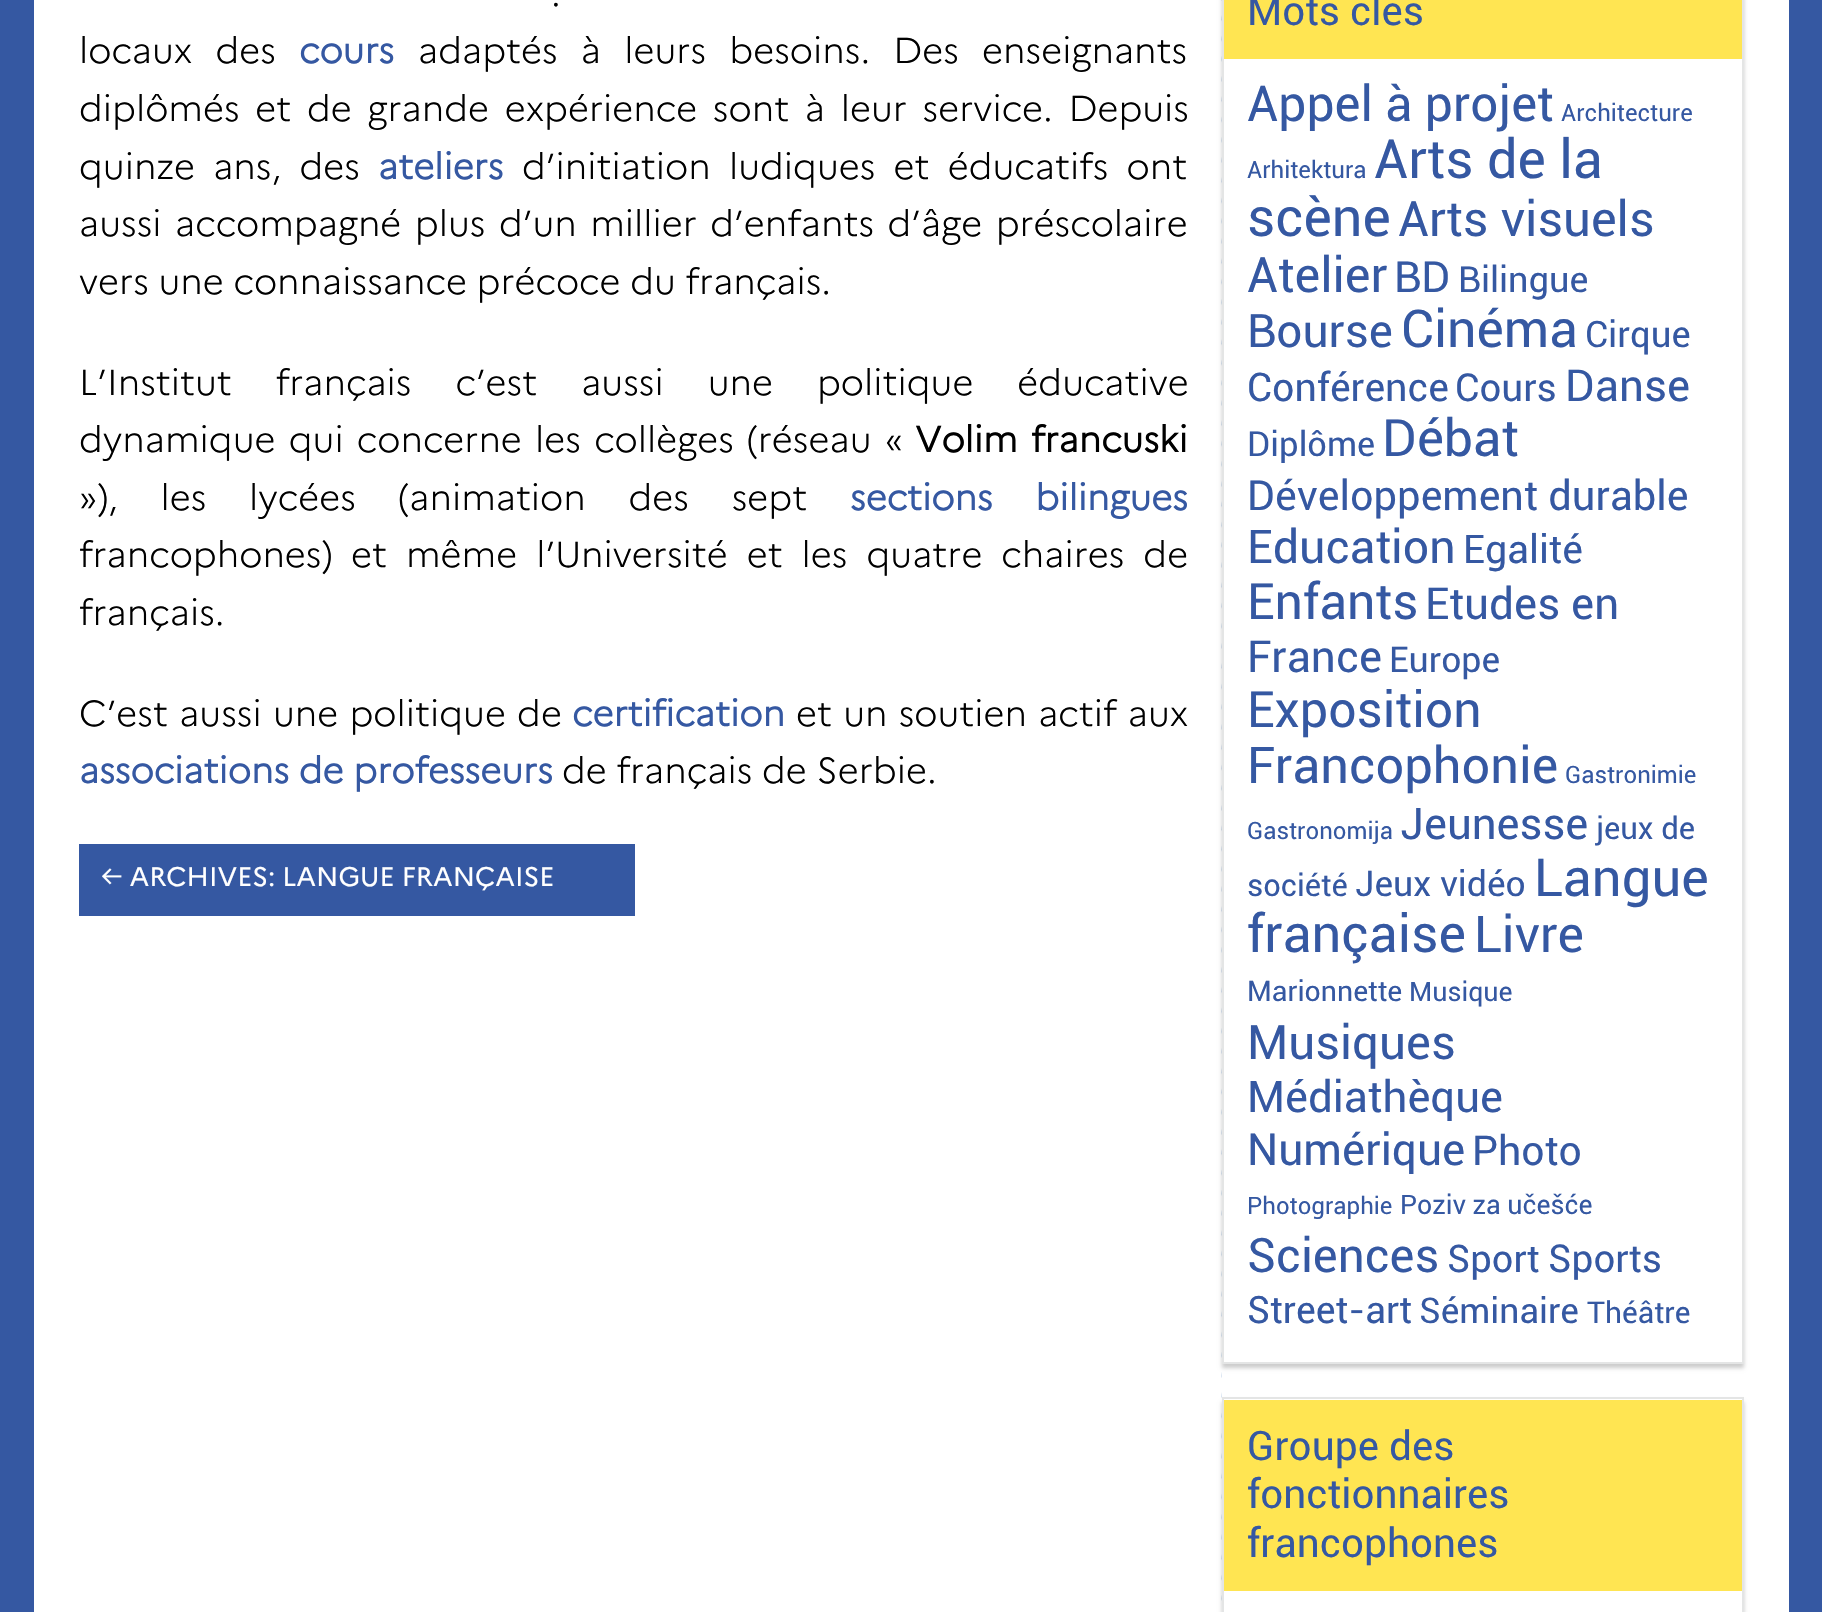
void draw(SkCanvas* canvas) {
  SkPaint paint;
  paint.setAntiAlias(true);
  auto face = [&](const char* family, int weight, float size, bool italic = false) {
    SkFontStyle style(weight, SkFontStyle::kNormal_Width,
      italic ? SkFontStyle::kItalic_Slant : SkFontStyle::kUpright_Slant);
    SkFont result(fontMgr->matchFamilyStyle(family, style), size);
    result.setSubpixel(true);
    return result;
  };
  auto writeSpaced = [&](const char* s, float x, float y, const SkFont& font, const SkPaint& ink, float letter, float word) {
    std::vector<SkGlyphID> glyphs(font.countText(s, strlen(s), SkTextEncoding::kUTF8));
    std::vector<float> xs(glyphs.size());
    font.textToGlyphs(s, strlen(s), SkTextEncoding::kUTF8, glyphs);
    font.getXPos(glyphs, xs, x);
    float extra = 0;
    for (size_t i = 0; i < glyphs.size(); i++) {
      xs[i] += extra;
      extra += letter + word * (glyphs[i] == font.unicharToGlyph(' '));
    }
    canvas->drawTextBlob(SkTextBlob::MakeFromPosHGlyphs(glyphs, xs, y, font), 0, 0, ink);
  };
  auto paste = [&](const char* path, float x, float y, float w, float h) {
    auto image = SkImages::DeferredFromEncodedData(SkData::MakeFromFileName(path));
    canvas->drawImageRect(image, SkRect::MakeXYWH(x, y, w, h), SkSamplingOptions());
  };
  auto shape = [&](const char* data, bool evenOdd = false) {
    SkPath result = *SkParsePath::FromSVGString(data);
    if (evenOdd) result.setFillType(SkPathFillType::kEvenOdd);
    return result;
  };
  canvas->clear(0xff3558a2);
  paint.setColor(0xffffffff);
  canvas->drawRect(SkRect::MakeXYWH(34, 0, 1755, 1612), paint);
  paint.setColor(0xff3558a2);
  canvas->drawRect(SkRect::MakeXYWH(79, 844, 556, 72), paint);
  paste("img/1.png", 1221, 0, 1, 1601);
  canvas->save();
  canvas->clipPath(shape("M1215 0H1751V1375H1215ZM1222-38H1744V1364H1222Z", true), true);
  paint.setColor(0x33000000);
  paint.setMaskFilter(SkMaskFilter::MakeBlur(kNormal_SkBlurStyle, 2));
  canvas->drawRect(SkRect::MakeXYWH(1222, -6, 522, 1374), paint);
  paint.setMaskFilter(nullptr);
  canvas->restore();
  paint.setStroke(true);
  paint.setStrokeWidth(2);
  paint.setColor(0xffe4e5e5);
  canvas->drawRect(SkRect::MakeXYWH(1223, -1, 520, 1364), paint);
  paint.setStroke(false);
  paint.setColor(0xffffe552);
  canvas->drawRect(SkRect::MakeXYWH(1224, 0, 518, 59), paint);
  canvas->save();
  canvas->clipPath(shape("M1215 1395H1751V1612H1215ZM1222 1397H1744V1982H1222Z", true), true);
  paint.setColor(0x33000000);
  paint.setMaskFilter(SkMaskFilter::MakeBlur(kNormal_SkBlurStyle, 2));
  canvas->drawRect(SkRect::MakeXYWH(1222, 1402, 522, 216), paint);
  paint.setMaskFilter(nullptr);
  canvas->restore();
  paint.setStroke(true);
  paint.setColor(0xffe4e5e5);
  canvas->drawRect(SkRect::MakeXYWH(1223, 1398, 520, 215), paint);
  paint.setStroke(false);
  paint.setColor(0xffffe552);
  canvas->drawRect(SkRect::MakeXYWH(1224, 1400, 518, 191), paint);
  auto f0 = face("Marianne", 300, 36);
  paint.setColor(0xff000000);
  writeSpaced(".", 551, 6, f0, paint, 0, 5);
  writeSpaced("locaux des", 79, 63, f0, paint, 0, 13.5f);
  auto f1 = face("Marianne", 700, 36);
  paint.setColor(0xff3558a2);
  canvas->drawString("cours", 299, 63, f1, paint);
  paint.setColor(0xff000000);
  writeSpaced("adaptés à leurs besoins. Des enseignants", 418, 63, f0, paint, 0, 13.5f);
  writeSpaced("diplômés et de grande expérience sont à leur service. Depuis", 79, 121, f0, paint, 0, 6);
  writeSpaced("quinze ans, des", 79, 179, f0, paint, 0, 8.5f);
  paint.setColor(0xff3558a2);
  canvas->drawString("ateliers", 378, 179, f1, paint);
  paint.setColor(0xff000000);
  writeSpaced("d’initiation ludiques et éducatifs ont", 522, 179, f0, paint, 0, 8.5f);
  writeSpaced("aussi accompagné plus d’un millier d’enfants d’âge préscolaire", 79, 236, f0, paint, 0, 3.75f);
  canvas->drawString("vers une connaissance précoce du français.", 79, 294, f0, paint);
  writeSpaced("L’Institut français c’est aussi une politique éducative", 79, 395, f0, paint, 0, 34.25f);
  writeSpaced("dynamique qui concerne les collèges (réseau «", 79, 452, f0, paint, 0, 3.5f);
  writeSpaced("Volim francuski", 915, 452, f1, paint, 0, 3.5f);
  writeSpaced("»), les lycées (animation des sept", 79, 510, f0, paint, 0, 33);
  paint.setColor(0xff3558a2);
  writeSpaced("sections bilingues", 850, 510, f1, paint, 0, 33);
  paint.setColor(0xff000000);
  writeSpaced("francophones) et même l’Université et les quatre chaires de", 79, 567, f0, paint, 0, 9.25f);
  canvas->drawString("français.", 79, 625, f0, paint);
  writeSpaced("C’est aussi une politique de", 79, 726, f0, paint, 0, 1.5f);
  paint.setColor(0xff3558a2);
  canvas->drawString("certification", 572, 726, f1, paint);
  paint.setColor(0xff000000);
  writeSpaced("et un soutien actif aux", 796, 726, f0, paint, 0, 1.5f);
  paint.setColor(0xff3558a2);
  canvas->drawString("associations de professeurs", 79, 783, f1, paint);
  paint.setColor(0xff000000);
  canvas->drawString("de français de Serbie.", 562, 783, f0, paint);
  auto f2 = face("Marianne", 400, 26.75f);
  paint.setColor(0xffffffff);
  canvas->drawString("← ARCHIVES: LANGUE FRANÇAISE", 101, 886, f2, paint);
  auto f3 = face("Roboto", 400, 40.5f);
  paint.setColor(0xff3558a2);
  canvas->drawString("Mots clés", 1247, 25, f3, paint);
  auto f4 = face("Roboto", 400, 49.5f);
  canvas->drawString("Appel à projet", 1247, 121, f4, paint);
  auto f5 = face("Roboto", 400, 24);
  canvas->drawString("Architecture", 1561, 121, f5, paint);
  canvas->drawString("Arhitektura", 1247, 178, f5, paint);
  auto f6 = face("Roboto", 400, 54);
  canvas->drawString("Arts de la", 1374, 178, f6, paint);
  canvas->drawString("scène", 1247, 236, f6, paint);
  auto f7 = face("Roboto", 400, 49);
  canvas->drawString("Arts visuels", 1398, 236, f7, paint);
  canvas->drawString("Atelier", 1247, 292, f7, paint);
  auto f8 = face("Roboto", 400, 43);
  canvas->drawString("BD", 1394, 292, f8, paint);
  auto f9 = face("Roboto", 400, 36);
  canvas->drawString("Bilingue", 1458, 292, f9, paint);
  auto f10 = face("Roboto", 400, 46);
  canvas->drawString("Bourse", 1247, 347, f10, paint);
  auto f11 = face("Roboto", 400, 52);
  canvas->drawString("Cinéma", 1401, 347, f11, paint);
  auto f12 = face("Roboto", 400, 36.5f);
  canvas->drawString("Cirque", 1585, 347, f12, paint);
  auto f13 = face("Roboto", 400, 39.5f);
  canvas->drawString("Conférence", 1247, 401, f13, paint);
  auto f14 = face("Roboto", 400, 38.5f);
  canvas->drawString("Cours", 1455, 401, f14, paint);
  auto f15 = face("Roboto", 400, 44);
  canvas->drawString("Danse", 1565, 401, f15, paint);
  auto f16 = face("Roboto", 400, 34.5f);
  canvas->drawString("Diplôme", 1247, 456, f16, paint);
  auto f17 = face("Roboto", 400, 51.5f);
  canvas->drawString("Débat", 1382, 456, f17, paint);
  auto f18 = face("Roboto", 400, 41.5f);
  canvas->drawString("Développement durable", 1247, 510, f18, paint);
  auto f19 = face("Roboto", 400, 46.5f);
  canvas->drawString("Education", 1247, 563, f19, paint);
  canvas->drawString("Egalité", 1463, 563, f13, paint);
  auto f20 = face("Roboto", 400, 50);
  canvas->drawString("Enfants", 1247, 619, f20, paint);
  canvas->drawString("Etudes en", 1425, 619, f15, paint);
  canvas->drawString("France", 1247, 672, f15, paint);
  auto f21 = face("Roboto", 400, 35.5f);
  canvas->drawString("Europe", 1389, 672, f21, paint);
  canvas->drawString("Exposition", 1247, 727, f20, paint);
  auto f22 = face("Roboto", 400, 50.5f);
  canvas->drawString("Francophonie", 1247, 783, f22, paint);
  canvas->drawString("Gastronimie", 1565, 783, f5, paint);
  canvas->drawString("Gastronomija", 1247, 839, f5, paint);
  auto f23 = face("Roboto", 400, 43.75f);
  canvas->drawString("Jeunesse", 1400, 839, f23, paint);
  auto f24 = face("Roboto", 400, 31);
  canvas->drawString("jeux de", 1596, 839, f24, paint);
  canvas->drawString("société", 1247, 896, f24, paint);
  canvas->drawString("Jeux vidéo", 1355, 896, f21, paint);
  auto f25 = face("Roboto", 400, 52.5f);
  canvas->drawString("Langue", 1534, 896, f25, paint);
  canvas->drawString("française", 1247, 952, f25, paint);
  canvas->drawString("Livre", 1474, 952, f22, paint);
  auto f26 = face("Roboto", 400, 28.5f);
  canvas->drawString("Marionnette", 1247, 1001, f26, paint);
  auto f27 = face("Roboto", 400, 26.75f);
  canvas->drawString("Musique", 1409, 1001, f27, paint);
  auto f28 = face("Roboto", 400, 47.5f);
  canvas->drawString("Musiques", 1247, 1059, f28, paint);
  canvas->drawString("Médiathèque", 1247, 1112, f23, paint);
  auto f29 = face("Roboto", 400, 44.25f);
  canvas->drawString("Numérique", 1247, 1165, f29, paint);
  auto f30 = face("Roboto", 400, 41);
  canvas->drawString("Photo", 1472, 1165, f30, paint);
  canvas->drawString("Photographie", 1247, 1214, f5, paint);
  canvas->drawString("Poziv za učešće", 1400, 1214, f27, paint);
  canvas->drawString("Sciences", 1247, 1272, f28, paint);
  auto f31 = face("Roboto", 400, 38);
  canvas->drawString("Sport", 1447, 1272, f31, paint);
  canvas->drawString("Sports", 1548, 1272, f14, paint);
  auto f32 = face("Roboto", 400, 37.75f);
  canvas->drawString("Street-art", 1247, 1323, f32, paint);
  canvas->drawString("Séminaire", 1419, 1323, f21, paint);
  auto f33 = face("Roboto", 400, 30);
  canvas->drawString("Théâtre", 1587, 1323, f33, paint);
  {
    const struct { const char* s; float x, y; } items[] = {
      {"Groupe des", 1247, 1460},
      {"fonctionnaires", 1247, 1508},
      {"francophones", 1247, 1557},
    };
    for (auto [s, x, y] : items) {
      canvas->drawString(s, x, y, f3, paint);
    }
  }
}
